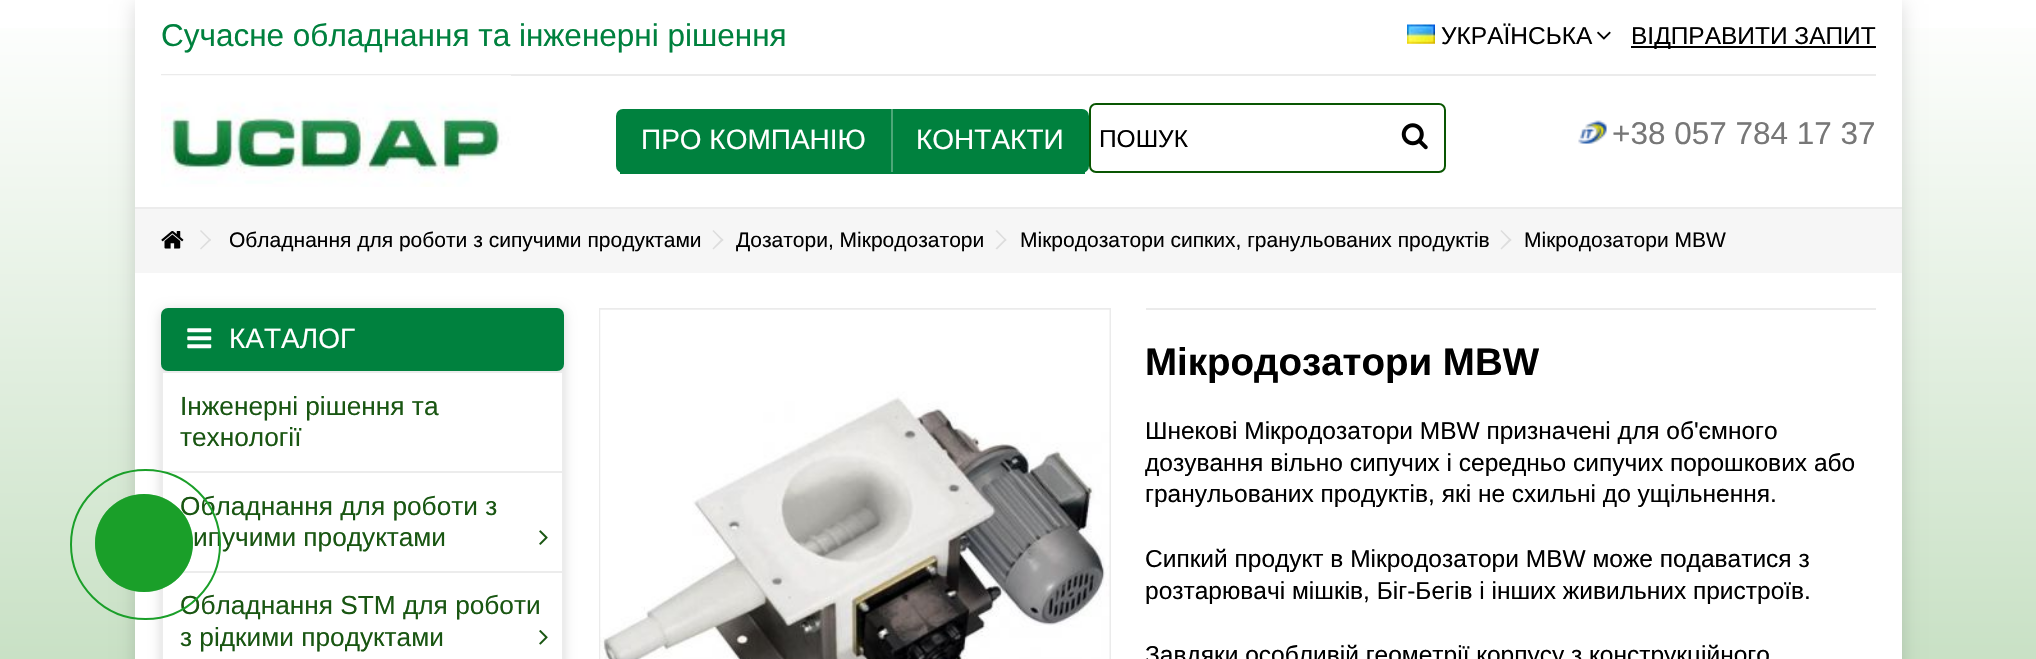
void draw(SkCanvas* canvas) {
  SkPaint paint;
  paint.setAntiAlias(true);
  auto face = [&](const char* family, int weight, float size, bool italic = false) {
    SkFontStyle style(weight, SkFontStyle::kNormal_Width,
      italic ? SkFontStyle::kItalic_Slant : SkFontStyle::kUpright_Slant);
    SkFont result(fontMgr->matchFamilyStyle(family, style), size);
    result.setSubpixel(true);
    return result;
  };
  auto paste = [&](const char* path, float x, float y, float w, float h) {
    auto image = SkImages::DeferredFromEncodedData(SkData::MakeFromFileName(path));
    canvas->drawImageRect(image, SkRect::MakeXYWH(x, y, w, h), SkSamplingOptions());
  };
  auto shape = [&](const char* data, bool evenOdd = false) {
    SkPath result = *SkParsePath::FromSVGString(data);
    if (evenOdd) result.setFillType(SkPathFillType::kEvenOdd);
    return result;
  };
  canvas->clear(0xffffffff);
  {
    const SkColor colors[] = {0xffffffff, 0xff4d9c41};
    const float stops[] = {0, 1};
    const SkPoint ends[] = {{1018, 0}, {1019, 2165}};
    paint.setShader(SkGradientShader::MakeLinear(ends, colors, stops, 2, SkTileMode::kClamp));
    paint.setAlpha(255);
  }
  canvas->drawRect(SkRect::MakeXYWH(0, 28, 2036, 631), paint);
  paint.setShader(nullptr);
  paint.setColor(0xfff6f6f6);
  canvas->drawRect(SkRect::MakeXYWH(135, 209, 1767, 64), paint);
  canvas->save();
  canvas->clipPath(shape("M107 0H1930V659H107ZM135 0H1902V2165H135Z", true), true);
  paint.setColor(0x26000000);
  paint.setMaskFilter(SkMaskFilter::MakeBlur(kNormal_SkBlurStyle, 9));
  canvas->drawRect(SkRect::MakeXYWH(135, 4, 1767, 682), paint);
  paint.setMaskFilter(nullptr);
  canvas->restore();
  {
    const struct { float x, y, w, h; SkColor color; } items[] = {
      {135, 28, 1767, 179, 0xffffffff},
      {135, 207, 1767, 2, 0xffececec},
      {161, 74, 1715, 2, 0xffebebeb},
    };
    for (auto [x, y, w, h, color] : items) {
      paint.setColor(color);
      canvas->drawRect(SkRect::MakeXYWH(x, y, w, h), paint);
    }
  }
  paste("img/1.png", 1407, 24, 28, 20);
  paste("img/2.png", 1597, 31, 14, 9);
  paint.setColor(0xff000000);
  canvas->drawRect(SkRect::MakeXYWH(1631, 46, 245, 2), paint);
  paste("img/3.png", 161, 75, 350, 112);
  paint.setColor(0xff00813e);
  canvas->drawRoundRect(SkRect::MakeXYWH(616, 109, 473, 64), 7, 7, paint);
  canvas->drawRect(SkRect::MakeXYWH(620, 172, 465, 2), paint);
  paint.setColor(0xff4da778);
  canvas->drawRect(SkRect::MakeXYWH(891, 109, 2, 63), paint);
  paint.setStroke(true);
  paint.setStrokeWidth(2);
  paint.setColor(0xff095602);
  canvas->drawRoundRect(SkRect::MakeXYWH(1090, 104, 355, 68), 6, 6, paint);
  paste("img/4.png", 1401, 123, 27, 27);
  paste("img/5.png", 1578, 120, 29, 24);
  paste("img/6.png", 161, 231, 23, 18);
  paint.setStroke(false);
  paint.setColor(0xffdddddd);
  canvas->drawPath(shape("M201 230L211 240L210 241L200 231Z"), paint);
  canvas->drawPath(shape("M210 238.5L211 240L201 249.5L200 248.5Z"), paint);
  canvas->drawPath(shape("M713.5 230L723.5 240L722 241L712.5 231Z"), paint);
  canvas->drawPath(shape("M722 238.5L723.5 240L713.5 249.5L712.5 248.5Z"), paint);
  canvas->drawPath(shape("M997 230L1006.5 240L1005.5 241L995.5 231Z"), paint);
  canvas->drawPath(shape("M1005.5 238.5L1006.5 240L997 249.5L995.5 248.5Z"), paint);
  canvas->drawPath(shape("M1501.5 230L1511.5 240L1510 241L1500.5 231Z"), paint);
  canvas->drawPath(shape("M1510 238.5L1511.5 240L1501.5 249.5L1500.5 248.5Z"), paint);
  paint.setColor(0xffffffff);
  canvas->drawRect(SkRect::MakeXYWH(135, 273, 1767, 386), paint);
  paint.setColor(0x26000000);
  paint.setMaskFilter(SkMaskFilter::MakeBlur(kNormal_SkBlurStyle, 6));
  canvas->drawRoundRect(SkRect::MakeXYWH(161, 310, 403, 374), 7, 7, paint);
  paint.setMaskFilter(nullptr);
  paint.setColor(0xff00813e);
  canvas->drawRoundRect(SkRect::MakeXYWH(161, 308, 403, 63), 7, 7, paint);
  paste("img/7.png", 187, 328, 25, 21);
  paint.setColor(0xffffffff);
  canvas->drawRect(SkRect::MakeXYWH(162, 372, 401, 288), paint);
  paint.setStroke(true);
  paint.setColor(0xffececec);
  canvas->drawRect(SkRect::MakeXYWH(162, 372, 401, 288), paint);
  paint.setStroke(false);
  canvas->drawRect(SkRect::MakeXYWH(163, 471, 399, 2), paint);
  paste("img/8.png", 539, 530, 9, 15);
  canvas->drawRect(SkRect::MakeXYWH(182, 571, 380, 2), paint);
  paste("img/9.png", 539, 630, 9, 15);
  paint.setStroke(true);
  paint.setColor(0xffebebeb);
  canvas->drawRect(SkRect::MakeXYWH(600, 309, 510, 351), paint);
  paste("img/10.png", 600, 309, 510, 350);
  paint.setStroke(false);
  canvas->drawRect(SkRect::MakeXYWH(1146, 308, 730, 2), paint);
  auto f0 = face("Liberation Sans", 400, 31.5f);
  paint.setColor(0xff00813e);
  canvas->drawString("Сучасне обладнання та інженерні рішення", 161, 46, f0, paint);
  auto f1 = face("Liberation Sans", 400, 24.5f);
  paint.setColor(0xff000000);
  canvas->drawString("УКРАЇНСЬКА", 1441, 44, f1, paint);
  canvas->drawString("ВІДПРАВИТИ ЗАПИТ", 1631, 44, f1, paint);
  auto f2 = face("Liberation Sans", 400, 28);
  paint.setColor(0xffffffff);
  canvas->drawString("ПРО КОМПАНІЮ", 641, 149, f2, paint);
  canvas->drawString("КОНТАКТИ", 916, 149, f2, paint);
  paint.setColor(0xff000000);
  canvas->drawString("ПОШУК", 1099, 147, f1, paint);
  paint.setColor(0xff777777);
  canvas->drawString("+38 057 784 17 37", 1612, 144, f0, paint);
  auto f3 = face("Liberation Sans", 400, 21);
  paint.setColor(0xff000000);
  {
    const struct { const char* s; float x, y; } items[] = {
      {"Обладнання для роботи з сипучими продуктами", 229, 247},
      {"Дозатори, Мікродозатори", 736, 247},
      {"Мікродозатори сипких, гранульованих продуктів", 1020, 247},
      {"Мікродозатори MBW", 1524, 247},
    };
    for (auto [s, x, y] : items) {
      canvas->drawString(s, x, y, f3, paint);
    }
  }
  paint.setColor(0xffffffff);
  canvas->drawString("КАТАЛОГ", 229, 348, f2, paint);
  auto f4 = face("Liberation Sans", 400, 26.25f);
  paint.setColor(0xff195612);
  {
    const struct { const char* s; float x, y; } items[] = {
      {"Інженерні рішення та", 180, 415},
      {"технології", 180, 446},
      {"Обладнання для роботи з", 180, 515},
    };
    for (auto [s, x, y] : items) {
      canvas->drawString(s, x, y, f4, paint);
    }
  }
  paint.setStroke(true);
  paint.setColor(0x801a9f29);
  canvas->drawCircle(144, 543, 48, paint);
  paint.setStroke(false);
  paint.setColor(0xff195612);
  canvas->drawString("ипучими продуктами", 193, 546, f4, paint);
  canvas->drawString("Обладнання STM для роботи", 180, 614, f4, paint);
  paint.setStroke(true);
  paint.setColor(0xff1a9f29);
  canvas->drawCircle(145.5f, 544.5f, 74.5f, paint);
  paint.setStroke(false);
  canvas->drawCircle(144, 543, 49, paint);
  paint.setColor(0xff195612);
  canvas->drawString("з рідкими продуктами", 180, 646, f4, paint);
  auto f5 = face("Liberation Sans", 700, 38.5f);
  paint.setColor(0xff000000);
  canvas->drawString("Мікродозатори MBW", 1145, 375, f5, paint);
  {
    const struct { const char* s; float x, y; } items[] = {
      {"Шнекові Мікродозатори MBW призначені для об'ємного", 1145, 439},
      {"дозування вільно сипучих і середньо сипучих порошкових або", 1145, 471},
      {"гранульованих продуктів, які не схильні до ущільнення.", 1145, 502},
      {"Сипкий продукт в Мікродозатори MBW може подаватися з", 1145, 567},
      {"розтарювачі мішків, Біг-Бегів і інших живильних пристроїв.", 1145, 599},
      {"Завдяки особливій геометрії корпусу з конструкційного", 1145, 663},
    };
    for (auto [s, x, y] : items) {
      canvas->drawString(s, x, y, f1, paint);
    }
  }
}
